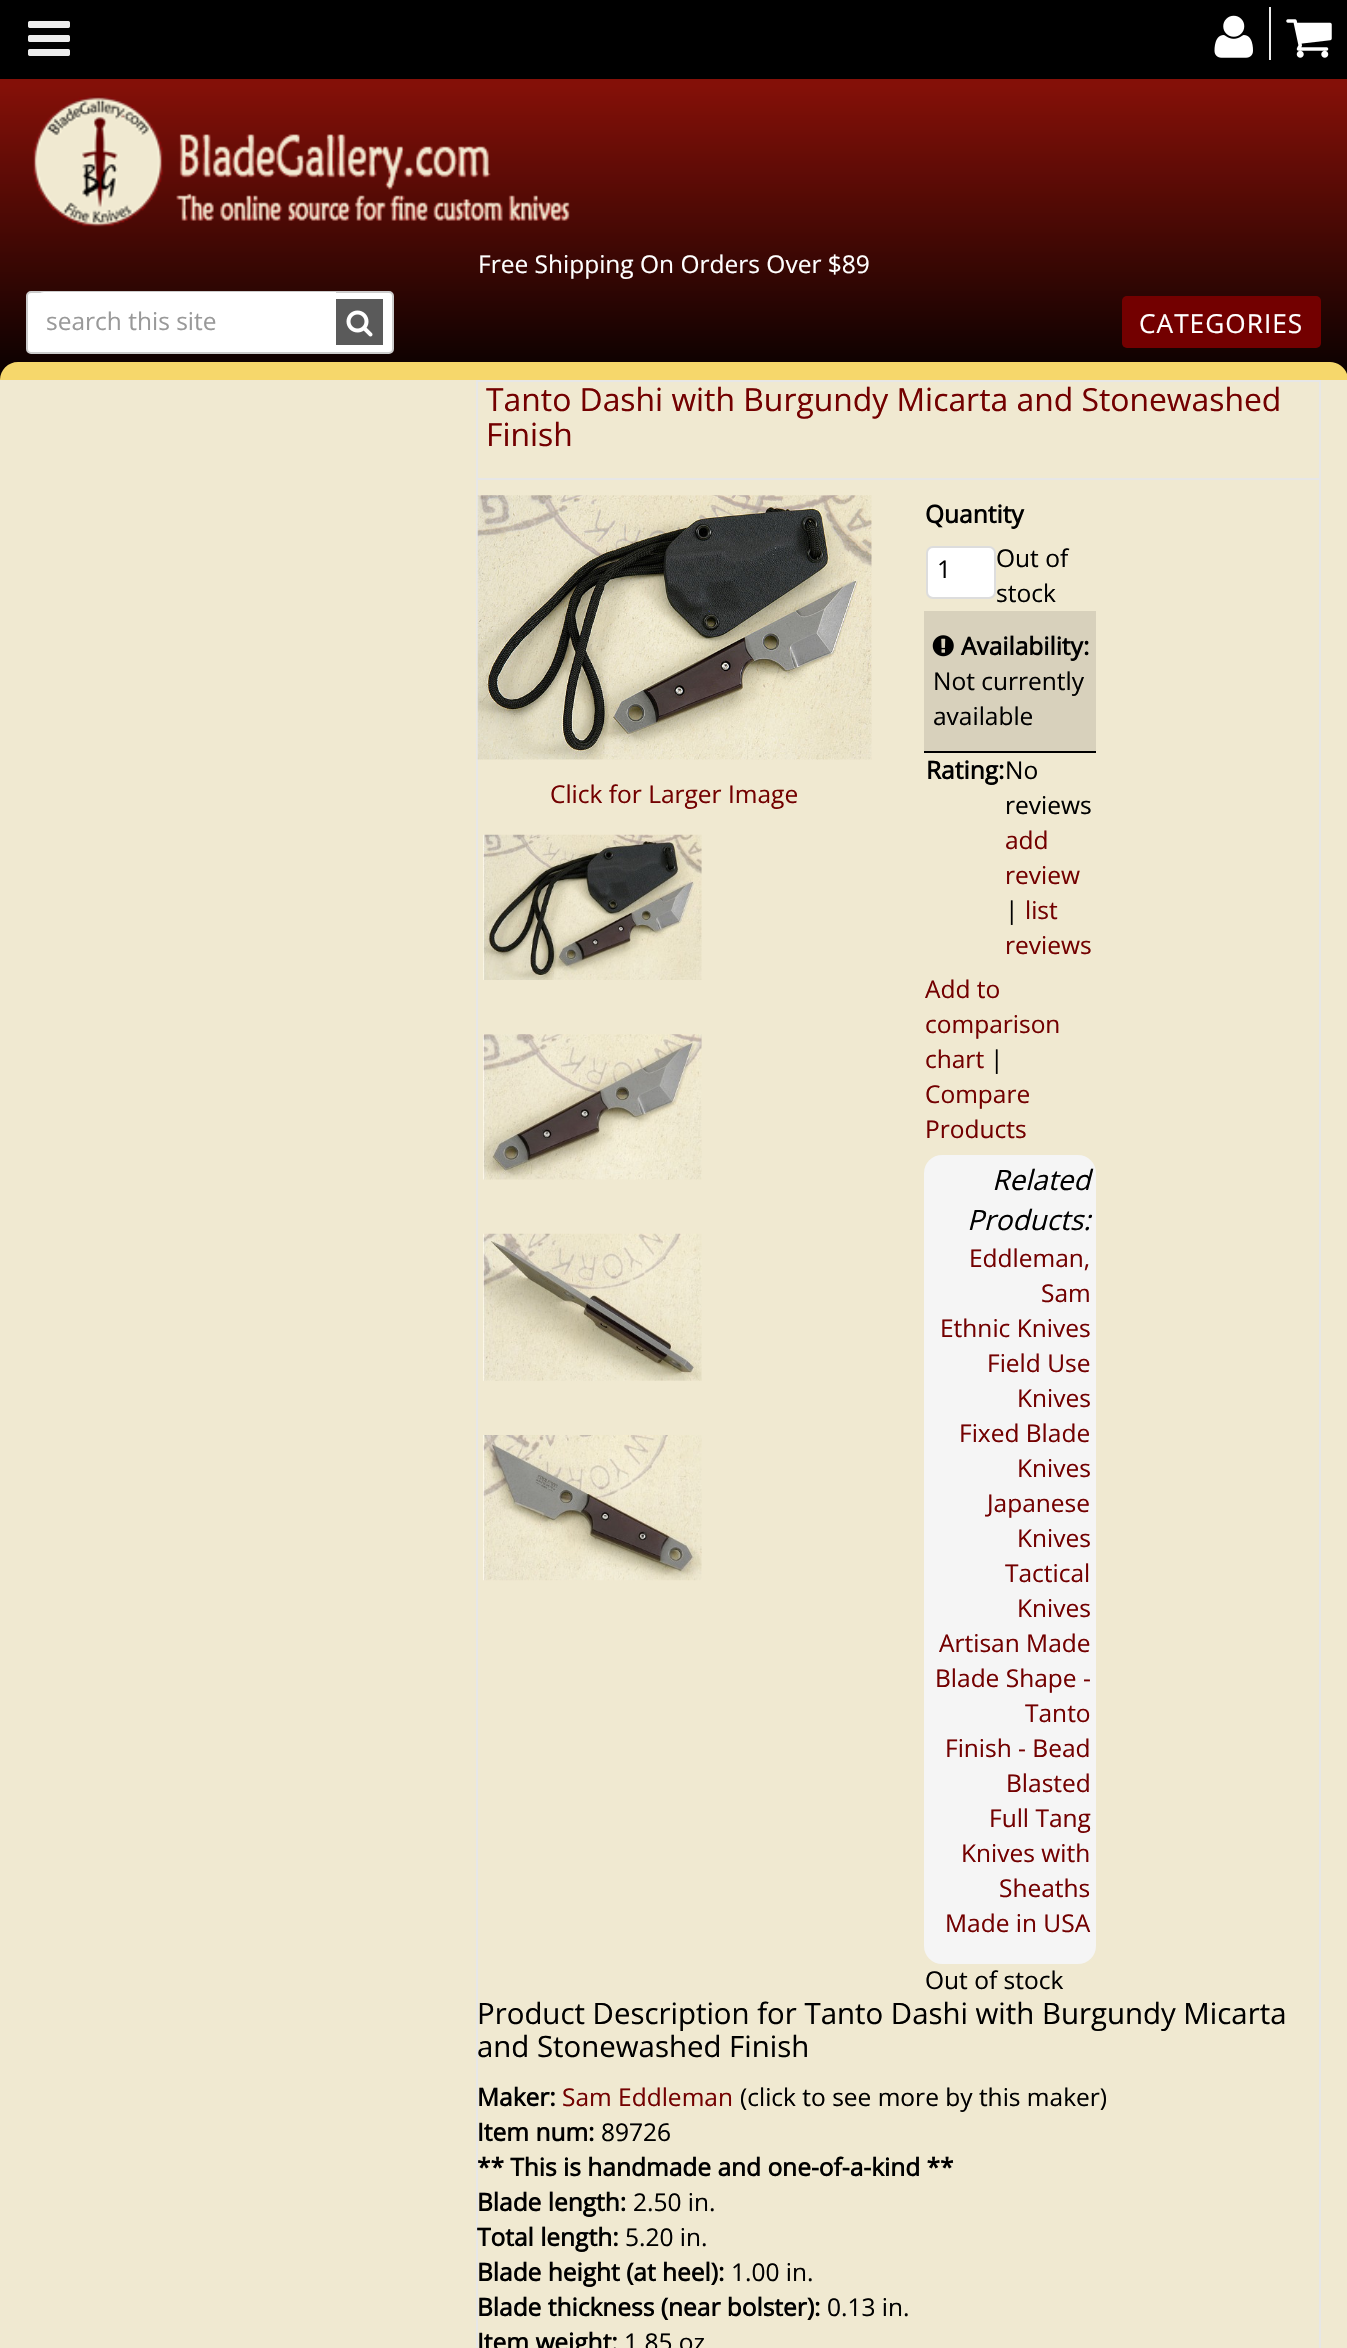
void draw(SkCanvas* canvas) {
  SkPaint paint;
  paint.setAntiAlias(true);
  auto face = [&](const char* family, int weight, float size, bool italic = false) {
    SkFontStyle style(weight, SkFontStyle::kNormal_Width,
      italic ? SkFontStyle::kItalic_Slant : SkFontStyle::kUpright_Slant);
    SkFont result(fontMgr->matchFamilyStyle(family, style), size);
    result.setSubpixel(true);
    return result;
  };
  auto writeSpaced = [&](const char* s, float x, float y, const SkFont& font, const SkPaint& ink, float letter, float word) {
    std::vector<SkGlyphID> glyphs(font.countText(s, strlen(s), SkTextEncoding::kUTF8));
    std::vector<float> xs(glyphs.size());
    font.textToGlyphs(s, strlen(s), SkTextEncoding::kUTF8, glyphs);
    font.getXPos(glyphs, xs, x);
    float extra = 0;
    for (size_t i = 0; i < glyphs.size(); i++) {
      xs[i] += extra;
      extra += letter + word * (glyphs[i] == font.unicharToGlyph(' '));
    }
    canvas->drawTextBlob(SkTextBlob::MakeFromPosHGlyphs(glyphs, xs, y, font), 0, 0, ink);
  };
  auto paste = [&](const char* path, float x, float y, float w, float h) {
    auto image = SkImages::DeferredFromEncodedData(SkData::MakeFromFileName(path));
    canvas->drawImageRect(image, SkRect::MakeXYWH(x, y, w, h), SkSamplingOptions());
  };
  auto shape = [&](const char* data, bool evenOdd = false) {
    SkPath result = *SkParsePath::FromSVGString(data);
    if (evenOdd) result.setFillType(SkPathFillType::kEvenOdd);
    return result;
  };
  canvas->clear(0xffffffff);
  {
    const SkColor colors[] = {0xff841008, 0xff841008, 0xff000000, 0x00000000};
    const float stops[] = {0, 0.2f, 0.93f, 0.94f};
    const SkPoint ends[] = {{674, 0}, {674, 429}};
    paint.setShader(SkGradientShader::MakeLinear(ends, colors, stops, 4, SkTileMode::kClamp));
    paint.setAlpha(255);
  }
  canvas->drawRect(SkRect::MakeXYWH(0, 79, 1347, 301), paint);
  paint.setShader(nullptr);
  paint.setColor(0xff000000);
  canvas->drawRect(SkRect::MakeXYWH(0, 0, 1347, 79), paint);
  paste("img/1.png", 28, 21, 42, 35);
  paint.setColor(0xffececec);
  canvas->drawRect(SkRect::MakeXYWH(1269, 7, 2, 53), paint);
  paste("img/2.png", 1214, 15, 39, 43);
  paste("img/3.png", 1286, 19, 46, 39);
  paste("img/4.png", 33, 96, 537, 131);
  paint.setColor(0xffffffff);
  canvas->drawRoundRect(SkRect::MakeXYWH(27, 292, 366, 61), 4, 4, paint);
  paint.setStroke(true);
  paint.setStrokeWidth(2);
  paint.setColor(0xffcccccc);
  canvas->drawRoundRect(SkRect::MakeXYWH(27, 292, 366, 61), 4, 4, paint);
  paint.setStroke(false);
  paint.setColor(0xffffffff);
  canvas->drawPath(shape("M44 292H336V352H44C40 352 37 349 37 345V299C37 295 40 292 44 292Z"), paint);
  paint.setColor(0xff5a5a5a);
  canvas->drawRect(SkRect::MakeXYWH(336, 299, 47, 46), paint);
  paste("img/5.png", 346, 310, 27, 27);
  paint.setColor(0xff730000);
  canvas->drawRoundRect(SkRect::MakeXYWH(1122, 296, 199, 52), 5, 5, paint);
  paint.setColor(0xfff6d76b);
  canvas->drawPath(shape("M18 362H1330C1340 362 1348 370 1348 380H0C0 370 8 362 18 362Z"), paint);
  paint.setColor(0xfff0e9d1);
  canvas->drawRect(SkRect::MakeXYWH(0, 380, 1347, 1968), paint);
  paint.setStroke(true);
  paint.setColor(0xffe7e7e7);
  canvas->drawRect(SkRect::MakeXYWH(477, 381, 843, 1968), paint);
  paint.setStroke(false);
  canvas->drawRect(SkRect::MakeXYWH(478, 478, 842, 2), paint);
  paste("img/6.png", 477, 495, 395, 265);
  paste("img/7.png", 483, 834, 219, 146);
  paste("img/8.png", 483, 1034, 219, 146);
  paste("img/9.png", 483, 1233, 219, 148);
  paste("img/10.png", 483, 1435, 219, 146);
  paint.setColor(0xffffffff);
  canvas->drawRoundRect(SkRect::MakeXYWH(927, 547, 68, 51), 6, 6, paint);
  paint.setStroke(true);
  paint.setColor(0xffdddddd);
  canvas->drawRoundRect(SkRect::MakeXYWH(927, 547, 68, 51), 6, 6, paint);
  paint.setStroke(false);
  paint.setColor(0xffd8d1bc);
  canvas->drawRect(SkRect::MakeXYWH(924, 611, 172, 140), paint);
  paint.setColor(0xff000000);
  canvas->drawRect(SkRect::MakeXYWH(924, 751, 172, 2), paint);
  paste("img/11.png", 932, 635, 22, 22);
  paint.setColor(0xfff5f5f5);
  canvas->drawRoundRect(SkRect::MakeXYWH(924, 1155, 172, 809), 18, 18, paint);
  auto f0 = face("Open Sans", 400, 24.5f);
  paint.setColor(0xffffffff);
  canvas->drawString("Free Shipping On Orders Over $89", 478, 273, f0, paint);
  paint.setColor(0xff999999);
  canvas->drawString("search this site", 46, 330, f0, paint);
  auto f1 = face("Open Sans", 400, 26.25f);
  paint.setColor(0xffffffff);
  writeSpaced("CATEGORIES", 1139, 333, f1, paint, 1, 0);
  auto f2 = face("Open Sans", 400, 31.85f);
  paint.setColor(0xff730000);
  canvas->drawString("Tanto Dashi with Burgundy Micarta and Stonewashed", 486, 411, f2, paint);
  canvas->drawString("Finish", 486, 446, f2, paint);
  canvas->drawString("Click for Larger Image", 550, 803, f0, paint);
  auto f3 = face("Open Sans", 700, 24.5f);
  paint.setColor(0xff000000);
  canvas->drawString("Quantity", 925, 523, f3, paint);
  {
    const struct { const char* s; float x, y; } items[] = {
      {"1", 937, 578},
      {"Out of", 996, 567},
      {"stock", 996, 602},
    };
    for (auto [s, x, y] : items) {
      canvas->drawString(s, x, y, f0, paint);
    }
  }
  canvas->drawString("Availability:", 961, 655, f3, paint);
  canvas->drawString("Not currently", 933, 690, f0, paint);
  canvas->drawString("available", 933, 725, f0, paint);
  canvas->drawString("Rating:", 926, 779, f3, paint);
  canvas->drawString("No", 1005, 779, f0, paint);
  canvas->drawString("reviews", 1005, 814, f0, paint);
  paint.setColor(0xff730000);
  canvas->drawString("add", 1005, 849, f0, paint);
  canvas->drawString("review", 1005, 884, f0, paint);
  paint.setColor(0xff000000);
  canvas->drawString("|", 1005, 919, f0, paint);
  paint.setColor(0xff730000);
  {
    const struct { const char* s; float x, y; } items[] = {
      {"list", 1025, 919},
      {"reviews", 1005, 954},
      {"Add to", 925, 998},
      {"comparison", 925, 1033},
      {"chart", 925, 1068},
    };
    for (auto [s, x, y] : items) {
      canvas->drawString(s, x, y, f0, paint);
    }
  }
  paint.setColor(0xff000000);
  canvas->drawString("|", 990, 1068, f0, paint);
  paint.setColor(0xff730000);
  canvas->drawString("Compare", 925, 1103, f0, paint);
  canvas->drawString("Products", 925, 1138, f0, paint);
  auto f4 = face("Open Sans", 400, 28, true);
  paint.setColor(0xff000000);
  canvas->drawString("Related", 992, 1190, f4, paint);
  canvas->drawString("Products:", 967, 1230, f4, paint);
  paint.setColor(0xff730000);
  {
    const struct { const char* s; float x, y; } items[] = {
      {"Eddleman,", 969, 1267},
      {"Sam", 1041, 1302},
      {"Ethnic Knives", 940, 1337},
      {"Field Use", 987, 1372},
      {"Knives", 1017, 1407},
      {"Fixed Blade", 959, 1442},
      {"Knives", 1017, 1477},
      {"Japanese", 987, 1512},
      {"Knives", 1017, 1547},
      {"Tactical", 1005, 1582},
      {"Knives", 1017, 1617},
      {"Artisan Made", 939, 1652},
      {"Blade Shape -", 935, 1687},
      {"Tanto", 1025, 1722},
      {"Finish - Bead", 945, 1757},
      {"Blasted", 1006, 1792},
      {"Full Tang", 989, 1827},
      {"Knives with", 961, 1862},
      {"Sheaths", 999, 1897},
      {"Made in USA", 945, 1932},
    };
    for (auto [s, x, y] : items) {
      canvas->drawString(s, x, y, f0, paint);
    }
  }
  paint.setColor(0xff000000);
  canvas->drawString("Out of stock", 925, 1989, f0, paint);
  auto f5 = face("Open Sans", 400, 29.4f);
  canvas->drawString("Product Description for Tanto Dashi with Burgundy Micarta", 477, 2024, f5, paint);
  canvas->drawString("and Stonewashed Finish", 477, 2057, f5, paint);
  canvas->drawString("Maker:", 477, 2106, f3, paint);
  paint.setColor(0xff730000);
  canvas->drawString("Sam Eddleman", 562, 2106, f0, paint);
  paint.setColor(0xff000000);
  canvas->drawString("(click to see more by this maker)", 740, 2106, f0, paint);
  canvas->drawString("Item num:", 477, 2141, f3, paint);
  canvas->drawString("89726", 601, 2141, f0, paint);
  canvas->drawString("** This is handmade and one-of-a-kind **", 477, 2176, f3, paint);
  canvas->drawString("Blade length:", 477, 2211, f3, paint);
  canvas->drawString("2.50 in.", 633, 2211, f0, paint);
  canvas->drawString("Total length:", 477, 2246, f3, paint);
  canvas->drawString("5.20 in.", 625, 2246, f0, paint);
  canvas->drawString("Blade height (at heel):", 477, 2281, f3, paint);
  canvas->drawString("1.00 in.", 731, 2281, f0, paint);
  canvas->drawString("Blade thickness (near bolster):", 477, 2316, f3, paint);
  canvas->drawString("0.13 in.", 827, 2316, f0, paint);
  canvas->drawString("Item weight:", 477, 2351, f3, paint);
  canvas->drawString("1.85 oz", 624, 2351, f0, paint);
}
